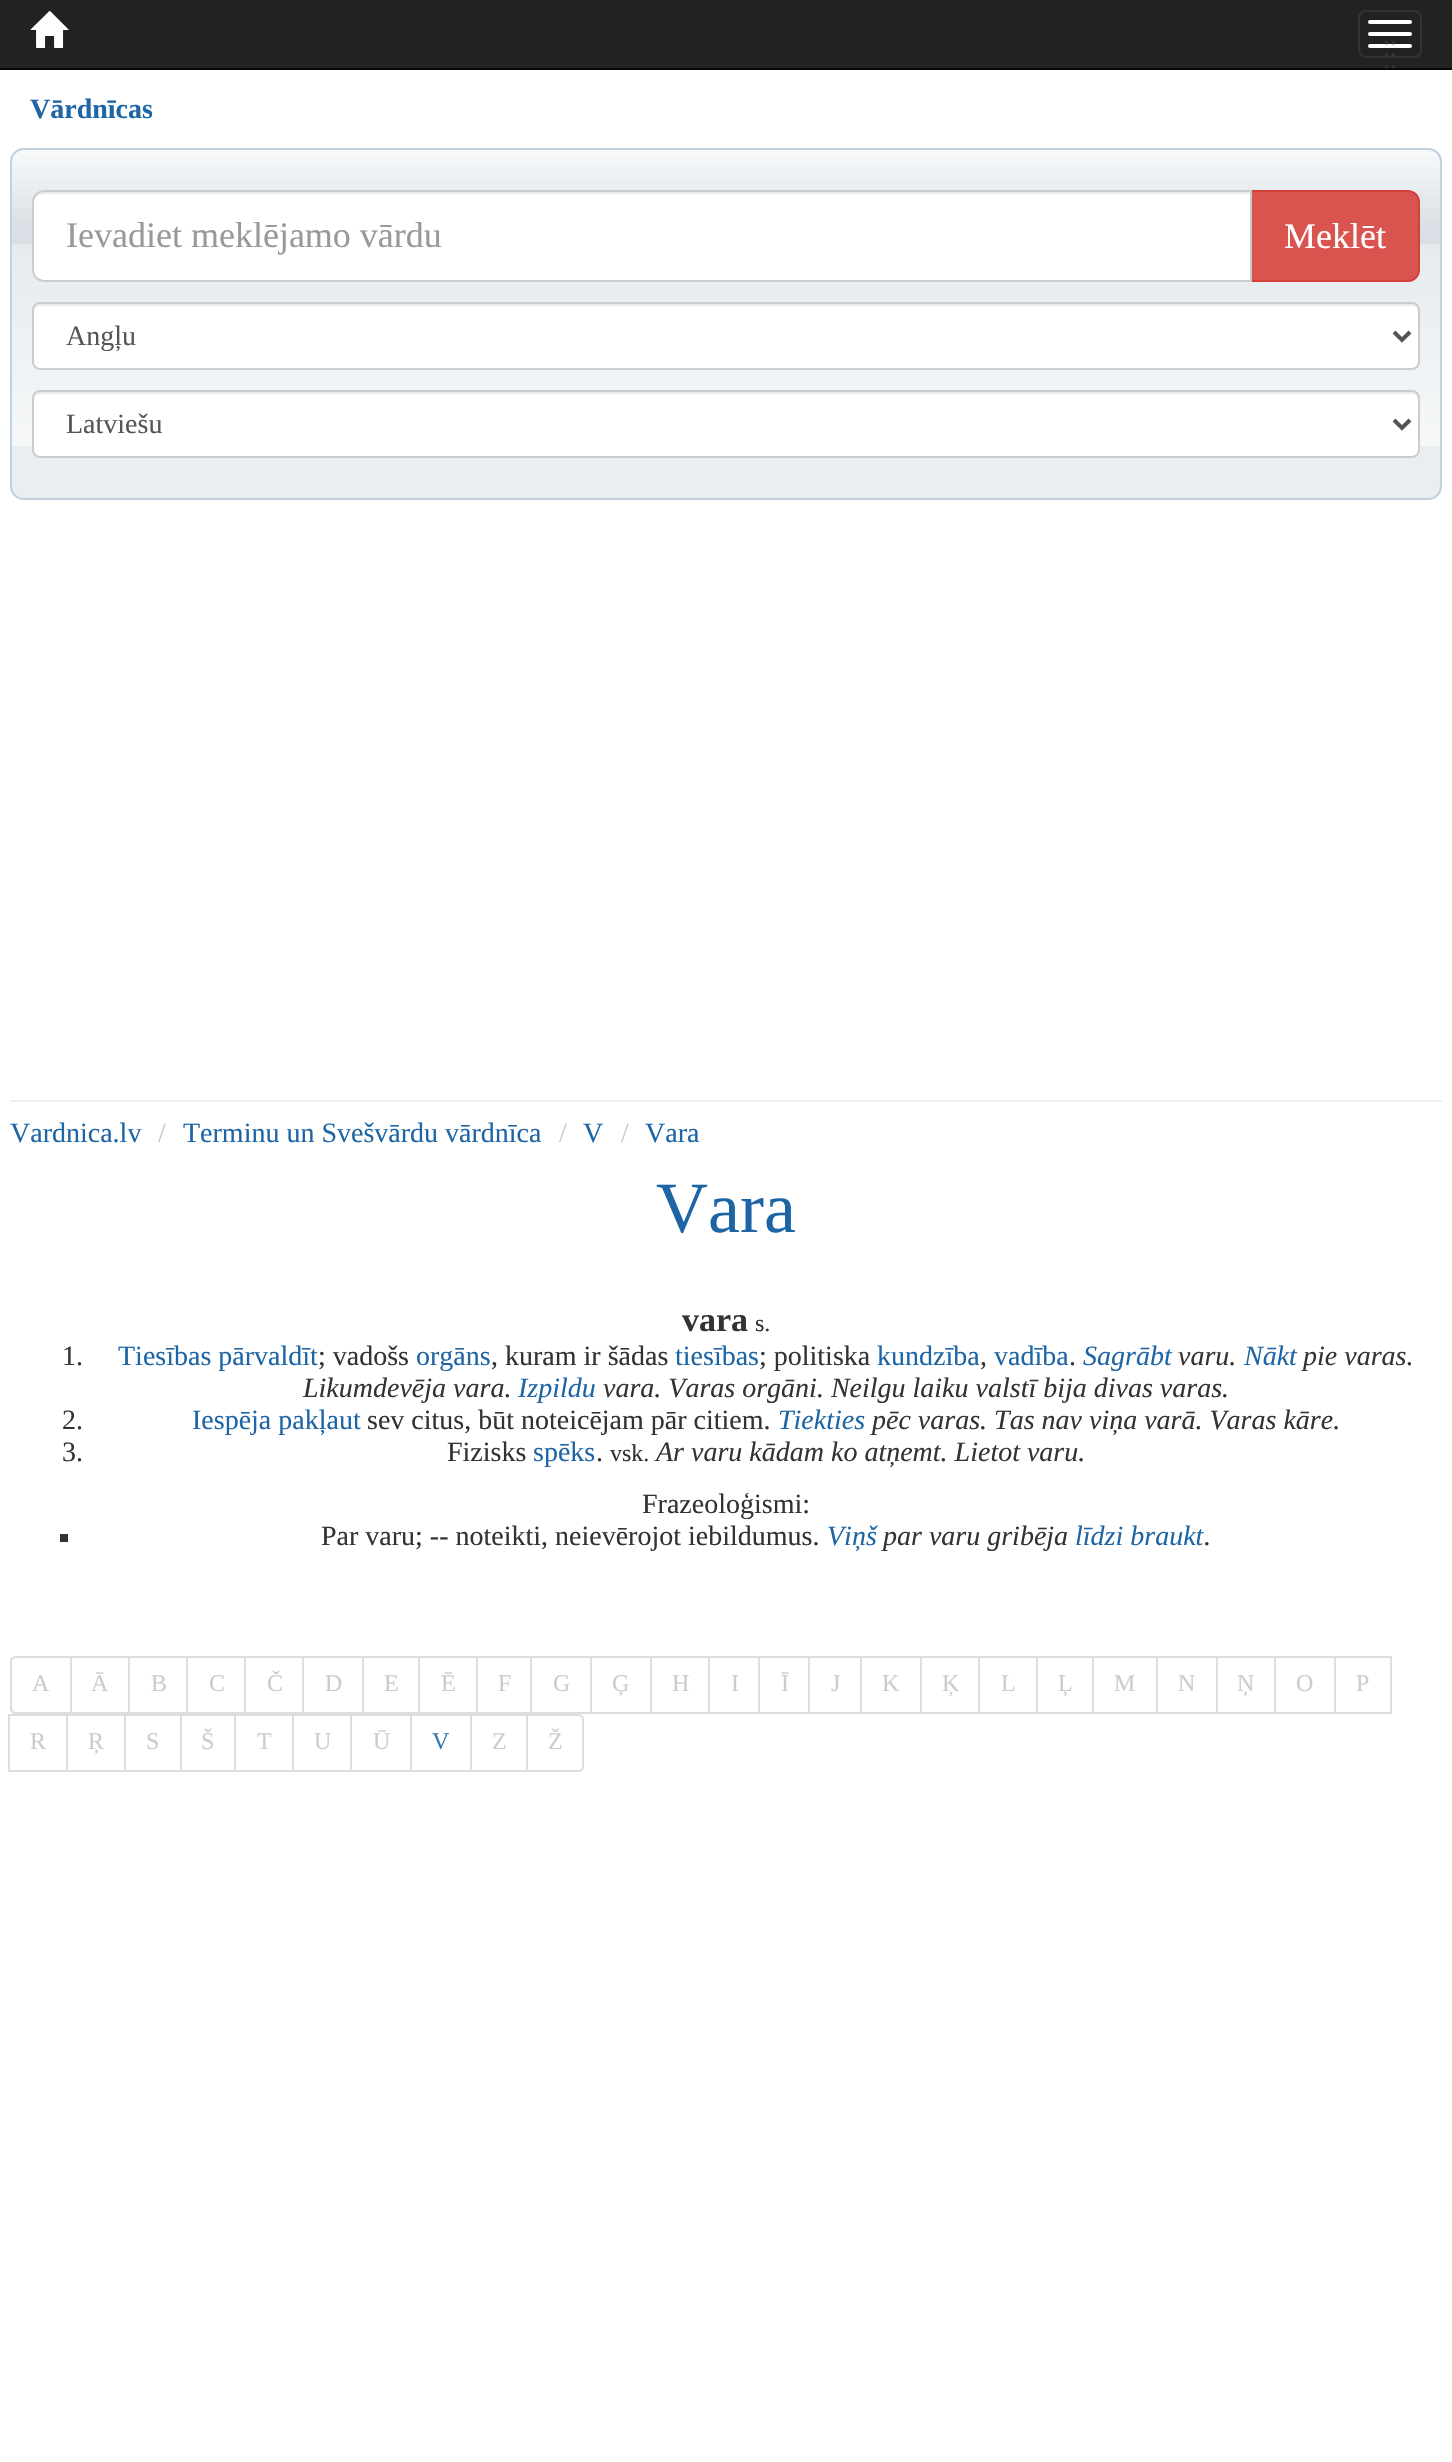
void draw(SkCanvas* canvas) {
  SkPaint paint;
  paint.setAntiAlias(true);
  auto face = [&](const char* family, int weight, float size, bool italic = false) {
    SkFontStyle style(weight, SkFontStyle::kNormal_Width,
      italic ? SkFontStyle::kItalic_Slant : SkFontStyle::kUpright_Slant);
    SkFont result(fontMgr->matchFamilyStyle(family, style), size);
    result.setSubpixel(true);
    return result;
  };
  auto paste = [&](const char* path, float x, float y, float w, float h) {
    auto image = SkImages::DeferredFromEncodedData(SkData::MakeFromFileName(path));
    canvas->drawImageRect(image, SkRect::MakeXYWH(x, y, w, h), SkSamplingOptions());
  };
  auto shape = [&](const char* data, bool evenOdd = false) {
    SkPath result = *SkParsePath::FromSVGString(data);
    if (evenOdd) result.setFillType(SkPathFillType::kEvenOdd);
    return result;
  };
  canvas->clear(0xffffffff);
  paint.setColor(0xff222222);
  canvas->drawRect(SkRect::MakeXYWH(0, 0, 1452, 68), paint);
  paint.setColor(0xff080808);
  canvas->drawRect(SkRect::MakeXYWH(0, 68, 1452, 2), paint);
  paste("img/1.png", 30, 11, 39, 37);
  paint.setStroke(true);
  paint.setStrokeWidth(2);
  paint.setColor(0xff333333);
  canvas->drawRoundRect(SkRect::MakeXYWH(1359, 11, 62, 46), 7, 7, paint);
  paint.setStroke(false);
  paint.setColor(0xffffffff);
  canvas->drawRoundRect(SkRect::MakeXYWH(1368, 20, 44, 4), 2, 2, paint);
  canvas->drawRoundRect(SkRect::MakeXYWH(1368, 32, 44, 4), 2, 2, paint);
  canvas->drawRoundRect(SkRect::MakeXYWH(1368, 44, 44, 4), 2, 2, paint);
  paint.setColor(0xffe9eef1);
  canvas->drawRoundRect(SkRect::MakeXYWH(10, 148, 1432, 352), 14, 14, paint);
  paste("img/2.png", 10, 150, 1432, 296);
  paint.setStroke(true);
  paint.setColor(0xffc1d1e1);
  canvas->drawRoundRect(SkRect::MakeXYWH(11, 149, 1430, 350), 13, 13, paint);
  paint.setStroke(false);
  paint.setColor(0xffd9534f);
  canvas->drawPath(shape("M1251 191H1408C1414 191 1419 196 1419 202V270C1419 276 1414 281 1408 281H1251Z"), paint);
  paint.setStroke(true);
  paint.setColor(0xffd43f3a);
  canvas->drawPath(shape("M1251 191H1408C1414 191 1419 196 1419 202V270C1419 276 1414 281 1408 281H1251Z"), paint);
  paint.setStroke(false);
  paint.setColor(0xffffffff);
  canvas->drawPath(shape("M44 190H1252V282H44C37.5 282 32 276.5 32 270V202C32 195.5 37.5 190 44 190Z"), paint);
  paint.setColor(0xffececec);
  canvas->drawPath(shape("M44 194H1250V192H44C37 192 34 198 34 204C34 198 38 194 44 194Z"), paint);
  paint.setStroke(true);
  paint.setColor(0xffcccccc);
  canvas->drawPath(shape("M44 191H1251V281H44C38 281 33 276 33 270V202C33 196 38 191 44 191Z"), paint);
  paint.setStroke(false);
  paint.setColor(0xffffffff);
  canvas->drawRoundRect(SkRect::MakeXYWH(32, 302, 1388, 68), 8, 8, paint);
  paint.setColor(0xffececec);
  canvas->drawPath(shape("M40 306H1412C1415 306 1418 309 1418 312V310C1418 307 1415 304 1412 304H40C37 304 34 307 34 310V312C34 309 37 306 40 306Z"), paint);
  paint.setStroke(true);
  paint.setColor(0xffcccccc);
  canvas->drawRoundRect(SkRect::MakeXYWH(33, 303, 1386, 66), 7, 7, paint);
  paint.setStrokeWidth(4);
  paint.setColor(0xff555555);
  canvas->drawPath(shape("M1394 332L1402 340L1410 332"), paint);
  paint.setStroke(false);
  paint.setColor(0xffffffff);
  canvas->drawRoundRect(SkRect::MakeXYWH(32, 390, 1388, 68), 8, 8, paint);
  paint.setColor(0xffececec);
  canvas->drawPath(shape("M40 394H1412C1415 394 1418 397 1418 400V398C1418 395 1415 392 1412 392H40C37 392 34 395 34 398V400C34 397 37 394 40 394Z"), paint);
  paint.setStroke(true);
  paint.setStrokeWidth(2);
  paint.setColor(0xffcccccc);
  canvas->drawRoundRect(SkRect::MakeXYWH(33, 391, 1386, 66), 7, 7, paint);
  paint.setStrokeWidth(4);
  paint.setColor(0xff555555);
  canvas->drawPath(shape("M1394 420L1402 428L1410 420"), paint);
  paint.setStroke(false);
  paint.setColor(0xffeeeeee);
  canvas->drawRect(SkRect::MakeXYWH(10, 1100, 1432, 2), paint);
  paint.setColor(0xff333333);
  canvas->drawRect(SkRect::MakeXYWH(60, 1534, 8, 8), paint);
  paint.setStroke(true);
  paint.setStrokeWidth(2);
  paint.setColor(0xffdddddd);
  canvas->drawPath(shape("M16 1657H71V1713H16C13 1713 11 1711 11 1708V1662C11 1659 13 1657 16 1657Z"), paint);
  canvas->drawRect(SkRect::MakeXYWH(71, 1657, 58, 56), paint);
  canvas->drawRect(SkRect::MakeXYWH(129, 1657, 58, 56), paint);
  canvas->drawRect(SkRect::MakeXYWH(187, 1657, 58, 56), paint);
  canvas->drawRect(SkRect::MakeXYWH(245, 1657, 58, 56), paint);
  canvas->drawRect(SkRect::MakeXYWH(303, 1657, 60, 56), paint);
  canvas->drawRect(SkRect::MakeXYWH(363, 1657, 56, 56), paint);
  canvas->drawRect(SkRect::MakeXYWH(419, 1657, 58, 56), paint);
  canvas->drawRect(SkRect::MakeXYWH(477, 1657, 54, 56), paint);
  canvas->drawRect(SkRect::MakeXYWH(531, 1657, 60, 56), paint);
  canvas->drawRect(SkRect::MakeXYWH(591, 1657, 60, 56), paint);
  canvas->drawRect(SkRect::MakeXYWH(651, 1657, 58, 56), paint);
  canvas->drawRect(SkRect::MakeXYWH(709, 1657, 50, 56), paint);
  canvas->drawRect(SkRect::MakeXYWH(759, 1657, 50, 56), paint);
  canvas->drawRect(SkRect::MakeXYWH(809, 1657, 52, 56), paint);
  canvas->drawRect(SkRect::MakeXYWH(861, 1657, 60, 56), paint);
  canvas->drawRect(SkRect::MakeXYWH(921, 1657, 58, 56), paint);
  canvas->drawRect(SkRect::MakeXYWH(979, 1657, 58, 56), paint);
  canvas->drawRect(SkRect::MakeXYWH(1037, 1657, 56, 56), paint);
  canvas->drawRect(SkRect::MakeXYWH(1093, 1657, 64, 56), paint);
  canvas->drawRect(SkRect::MakeXYWH(1157, 1657, 60, 56), paint);
  canvas->drawRect(SkRect::MakeXYWH(1217, 1657, 58, 56), paint);
  canvas->drawRect(SkRect::MakeXYWH(1275, 1657, 60, 56), paint);
  canvas->drawRect(SkRect::MakeXYWH(1335, 1657, 56, 56), paint);
  canvas->drawRect(SkRect::MakeXYWH(9, 1715, 58, 56), paint);
  canvas->drawRect(SkRect::MakeXYWH(67, 1715, 58, 56), paint);
  canvas->drawRect(SkRect::MakeXYWH(125, 1715, 56, 56), paint);
  canvas->drawRect(SkRect::MakeXYWH(181, 1715, 54, 56), paint);
  canvas->drawRect(SkRect::MakeXYWH(235, 1715, 58, 56), paint);
  canvas->drawRect(SkRect::MakeXYWH(293, 1715, 58, 56), paint);
  canvas->drawRect(SkRect::MakeXYWH(351, 1715, 60, 56), paint);
  canvas->drawRect(SkRect::MakeXYWH(411, 1715, 60, 56), paint);
  canvas->drawRect(SkRect::MakeXYWH(471, 1715, 56, 56), paint);
  paint.setStroke(false);
  paint.setColor(0xffffffff);
  canvas->drawPath(shape("M527 1715H578C581 1715 583 1717 583 1720V1766C583 1769 581 1771 578 1771H527Z"), paint);
  paint.setStroke(true);
  paint.setColor(0xffdddddd);
  canvas->drawPath(shape("M527 1715H578C581 1715 583 1717 583 1720V1766C583 1769 581 1771 578 1771H527Z"), paint);
  auto f0 = face("Liberation Serif", 400, 28);
  paint.setStroke(false);
  paint.setColor(0xff333333);
  {
    const struct { const char* s; float x, y; } items[] = {
      {"..", 1383, 44},
      {"..", 1383, 56},
      {"..", 1383, 68},
    };
    for (auto [s, x, y] : items) {
      canvas->drawString(s, x, y, f0, paint);
    }
  }
  auto f1 = face("Liberation Serif", 700, 28);
  paint.setColor(0xff1e65a5);
  canvas->drawString("Vārdnīcas", 30, 118, f1, paint);
  auto f2 = face("Liberation Serif", 400, 36);
  paint.setColor(0xff999999);
  canvas->drawString("Ievadiet meklējamo vārdu", 66, 247, f2, paint);
  paint.setColor(0xffffffff);
  canvas->drawString("Meklēt", 1284, 248, f2, paint);
  paint.setColor(0xff555555);
  canvas->drawString("Angļu", 66, 345, f0, paint);
  canvas->drawString("Latviešu", 66, 433, f0, paint);
  paint.setColor(0xff1e65a5);
  canvas->drawString("Vardnica.lv", 10, 1142, f0, paint);
  paint.setColor(0xffcccccc);
  canvas->drawString("/", 158, 1142, f0, paint);
  paint.setColor(0xff1e65a5);
  canvas->drawString("Terminu un Svešvārdu vārdnīca", 183, 1142, f0, paint);
  paint.setColor(0xffcccccc);
  canvas->drawString("/", 559, 1142, f0, paint);
  paint.setColor(0xff1e65a5);
  canvas->drawString("V", 583, 1142, f0, paint);
  paint.setColor(0xffcccccc);
  canvas->drawString("/", 621, 1142, f0, paint);
  paint.setColor(0xff1e65a5);
  canvas->drawString("Vara", 645, 1142, f0, paint);
  auto f3 = face("Liberation Serif", 400, 72);
  canvas->drawString("Vara", 656, 1232, f3, paint);
  auto f4 = face("Liberation Serif", 700, 34);
  paint.setColor(0xff333333);
  canvas->drawString("vara", 682, 1331, f4, paint);
  auto f5 = face("Liberation Serif", 400, 24);
  canvas->drawString("s.", 755, 1331, f5, paint);
  canvas->drawString("1.", 62, 1365, f0, paint);
  paint.setColor(0xff1e65a5);
  canvas->drawString("Tiesības pārvaldīt", 118, 1365, f0, paint);
  paint.setColor(0xff333333);
  canvas->drawString("; vadošs", 318, 1365, f0, paint);
  paint.setColor(0xff1e65a5);
  canvas->drawString("orgāns", 416, 1365, f0, paint);
  paint.setColor(0xff333333);
  canvas->drawString(", kuram ir šādas", 491, 1365, f0, paint);
  paint.setColor(0xff1e65a5);
  canvas->drawString("tiesības", 675, 1365, f0, paint);
  paint.setColor(0xff333333);
  canvas->drawString("; politiska", 759, 1365, f0, paint);
  paint.setColor(0xff1e65a5);
  canvas->drawString("kundzība", 877, 1365, f0, paint);
  paint.setColor(0xff333333);
  canvas->drawString(",", 980, 1365, f0, paint);
  paint.setColor(0xff1e65a5);
  canvas->drawString("vadība", 994, 1365, f0, paint);
  paint.setColor(0xff333333);
  canvas->drawString(".", 1069, 1365, f0, paint);
  auto f6 = face("Liberation Serif", 400, 28, true);
  paint.setColor(0xff1e65a5);
  canvas->drawString("Sagrābt", 1083, 1365, f6, paint);
  paint.setColor(0xff333333);
  canvas->drawString("varu.", 1178, 1365, f6, paint);
  paint.setColor(0xff1e65a5);
  canvas->drawString("Nākt", 1244, 1365, f6, paint);
  paint.setColor(0xff333333);
  canvas->drawString("pie varas.", 1303, 1365, f6, paint);
  canvas->drawString("Likumdevēja vara.", 303, 1397, f6, paint);
  paint.setColor(0xff1e65a5);
  canvas->drawString("Izpildu", 518, 1397, f6, paint);
  paint.setColor(0xff333333);
  canvas->drawString("vara. Varas orgāni. Neilgu laiku valstī bija divas varas.", 603, 1397, f6, paint);
  canvas->drawString("2.", 62, 1429, f0, paint);
  paint.setColor(0xff1e65a5);
  canvas->drawString("Iespēja pakļaut", 192, 1429, f0, paint);
  paint.setColor(0xff333333);
  canvas->drawString("sev citus, būt noteicējam pār citiem.", 367, 1429, f0, paint);
  paint.setColor(0xff1e65a5);
  canvas->drawString("Tiekties", 778, 1429, f6, paint);
  paint.setColor(0xff333333);
  canvas->drawString("pēc varas. Tas nav viņa varā. Varas kāre.", 872, 1429, f6, paint);
  canvas->drawString("3.", 62, 1461, f0, paint);
  canvas->drawString("Fizisks", 447, 1461, f0, paint);
  paint.setColor(0xff1e65a5);
  canvas->drawString("spēks", 533, 1461, f0, paint);
  paint.setColor(0xff333333);
  canvas->drawString(".", 596, 1461, f0, paint);
  canvas->drawString("vsk.", 610, 1461, f5, paint);
  canvas->drawString("Ar varu kādam ko atņemt. Lietot varu.", 656, 1461, f6, paint);
  canvas->drawString("Frazeoloģismi:", 642, 1513, f0, paint);
  canvas->drawString("Par varu; -- noteikti, neievērojot iebildumus.", 321, 1545, f0, paint);
  paint.setColor(0xff1e65a5);
  canvas->drawString("Viņš", 827, 1545, f6, paint);
  paint.setColor(0xff333333);
  canvas->drawString("par varu gribēja", 883, 1545, f6, paint);
  paint.setColor(0xff1e65a5);
  canvas->drawString("līdzi braukt", 1075, 1545, f6, paint);
  paint.setColor(0xff333333);
  canvas->drawString(".", 1204, 1545, f6, paint);
  paint.setColor(0xffcccccc);
  {
    const struct { const char* s; float x, y; } items[] = {
      {"A", 32, 1691},
      {"Ā", 91, 1691},
      {"B", 151, 1691},
      {"C", 209, 1691},
      {"Č", 267, 1691},
      {"D", 325, 1691},
      {"E", 384, 1691},
      {"Ē", 441, 1691},
      {"F", 498, 1691},
      {"G", 553, 1691},
      {"Ģ", 612, 1691},
      {"H", 672, 1691},
      {"I", 731, 1691},
      {"Ī", 781, 1691},
      {"J", 831, 1691},
      {"K", 882, 1691},
      {"Ķ", 942, 1691},
      {"L", 1001, 1691},
      {"Ļ", 1058, 1691},
      {"M", 1114, 1691},
      {"N", 1178, 1691},
      {"Ņ", 1237, 1691},
      {"O", 1296, 1691},
      {"P", 1356, 1691},
      {"R", 30, 1749},
      {"Ŗ", 88, 1749},
      {"S", 146, 1749},
      {"Š", 201, 1749},
      {"T", 257, 1749},
      {"U", 314, 1749},
      {"Ū", 373, 1749},
    };
    for (auto [s, x, y] : items) {
      canvas->drawString(s, x, y, f5, paint);
    }
  }
  paint.setColor(0xff337ab7);
  canvas->drawString("V", 432, 1749, f5, paint);
  paint.setColor(0xffcccccc);
  canvas->drawString("Z", 492, 1749, f5, paint);
  canvas->drawString("Ž", 548, 1749, f5, paint);
}
